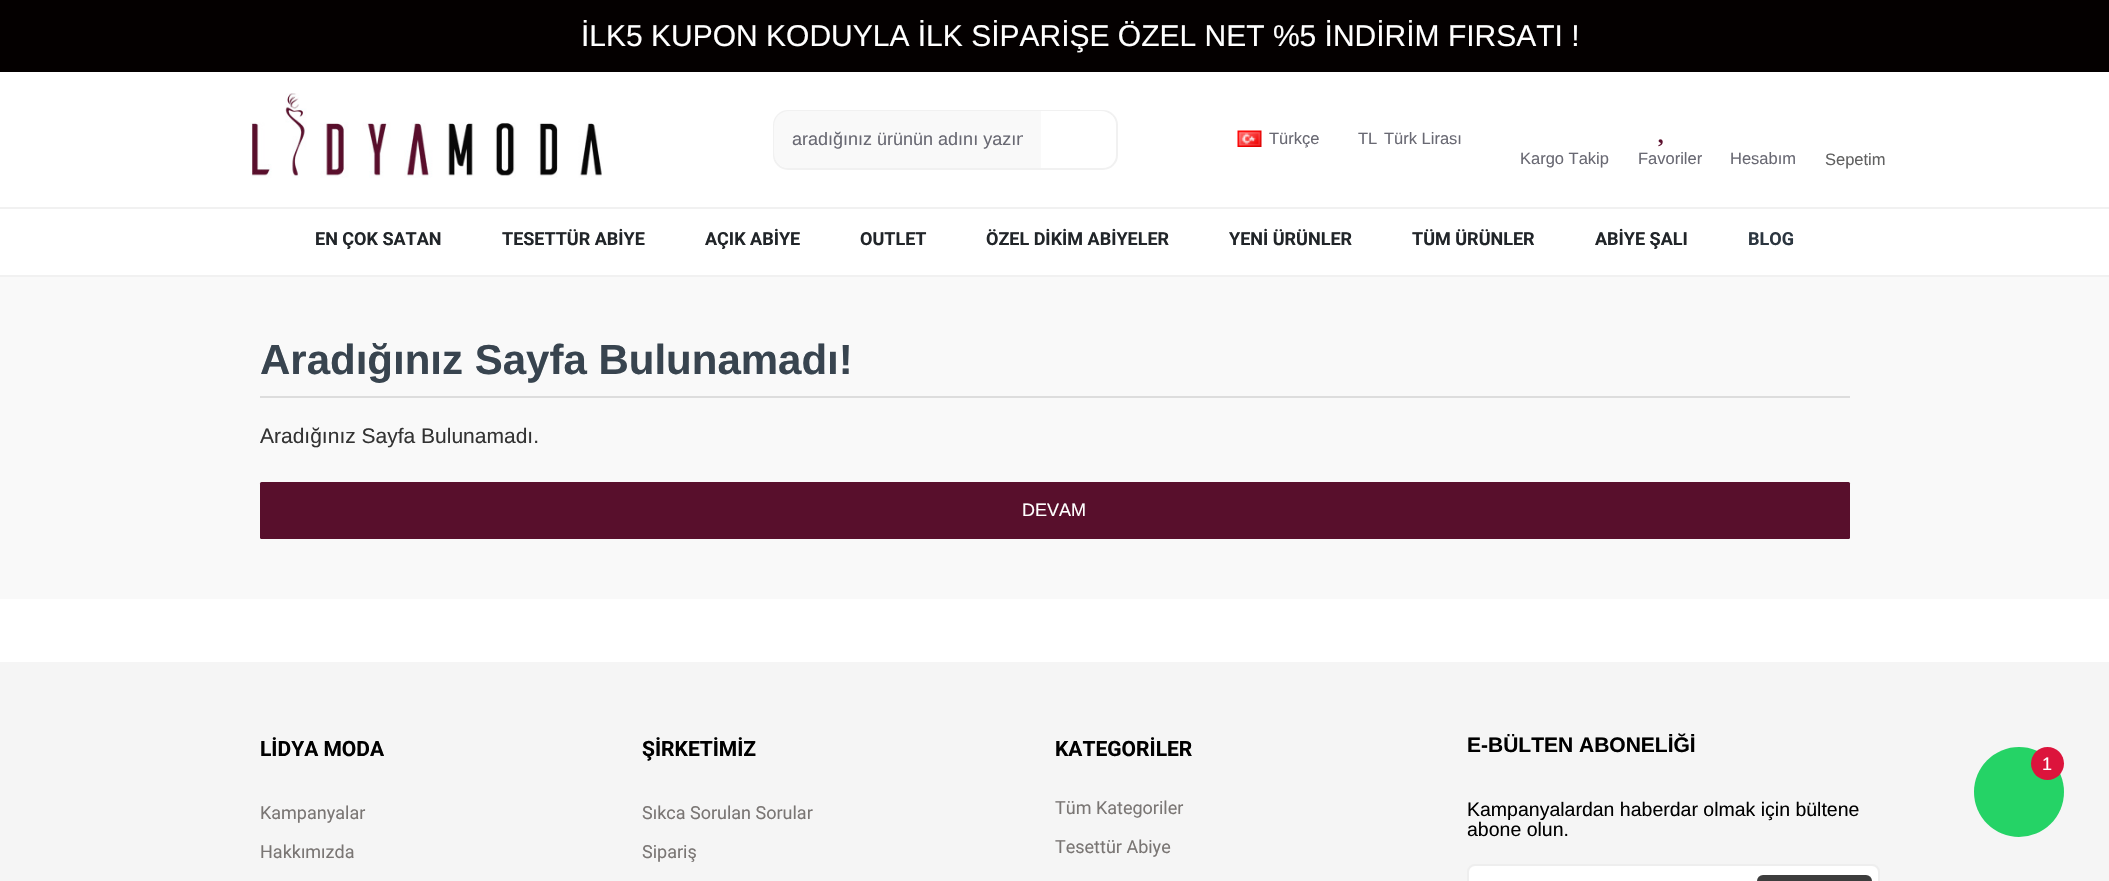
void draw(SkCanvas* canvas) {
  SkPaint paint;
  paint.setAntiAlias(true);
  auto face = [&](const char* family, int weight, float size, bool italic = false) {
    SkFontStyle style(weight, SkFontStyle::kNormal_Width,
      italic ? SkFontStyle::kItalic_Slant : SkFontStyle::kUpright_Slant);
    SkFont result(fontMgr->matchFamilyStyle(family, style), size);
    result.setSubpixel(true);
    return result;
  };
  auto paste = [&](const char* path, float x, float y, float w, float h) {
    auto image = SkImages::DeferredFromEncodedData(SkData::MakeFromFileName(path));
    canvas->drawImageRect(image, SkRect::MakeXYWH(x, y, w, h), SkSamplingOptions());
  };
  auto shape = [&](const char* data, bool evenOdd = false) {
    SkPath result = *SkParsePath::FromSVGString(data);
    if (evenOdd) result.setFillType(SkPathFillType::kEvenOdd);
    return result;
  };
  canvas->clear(0xfff9f9f9);
  {
    const struct { float x, y, w, h; SkColor color; } items[] = {
      {0, 0, 2109, 72, 0xff040000},
      {0, 72, 2109, 203, 0xffffffff},
      {0, 275, 2109, 2, 0xfff1f1f1},
    };
    for (auto [x, y, w, h, color] : items) {
      paint.setColor(color);
      canvas->drawRect(SkRect::MakeXYWH(x, y, w, h), paint);
    }
  }
  paste("img/1.png", 250, 93, 352, 85);
  paint.setStroke(true);
  paint.setStrokeWidth(2);
  canvas->drawRoundRect(SkRect::MakeXYWH(774, 111, 343, 58), 14, 14, paint);
  paint.setStroke(false);
  paint.setColor(0xfff9f9f9);
  canvas->drawPath(shape("M789 111H1041V168H789C780.5 168 774 161.5 774 153V126C774 117.5 780.5 111 789 111Z"), paint);
  paint.setColor(0xffffffff);
  canvas->drawPath(shape("M1041 111H1101C1109.5 111 1116 117.5 1116 126V153C1116 161.5 1109.5 168 1101 168H1041Z"), paint);
  paste("img/2.png", 1237, 130, 25, 17);
  paste("img/3.png", 1658, 139, 5, 8);
  paint.setColor(0xfff1f1f1);
  canvas->drawRect(SkRect::MakeXYWH(0, 207, 2109, 2), paint);
  paint.setColor(0xffdddddd);
  canvas->drawRect(SkRect::MakeXYWH(260, 396, 1590, 2), paint);
  paint.setColor(0xff580f2c);
  canvas->drawRoundRect(SkRect::MakeXYWH(260, 482, 1590, 57), 1.5f, 1.5f, paint);
  paint.setColor(0xffffffff);
  canvas->drawRect(SkRect::MakeXYWH(0, 599, 2109, 63), paint);
  paint.setColor(0xfff5f5f5);
  canvas->drawRect(SkRect::MakeXYWH(0, 662, 2109, 219), paint);
  paint.setColor(0xffffffff);
  canvas->drawRoundRect(SkRect::MakeXYWH(1468, 865, 411, 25), 7, 7, paint);
  paint.setStroke(true);
  paint.setColor(0xffeeeeee);
  canvas->drawRoundRect(SkRect::MakeXYWH(1468, 865, 411, 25), 7, 7, paint);
  paint.setStroke(false);
  paint.setColor(0xff3d3d3d);
  canvas->drawRoundRect(SkRect::MakeXYWH(1757, 875, 115, 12), 6, 6, paint);
  paint.setColor(0xff25d366);
  canvas->drawCircle(2019, 792, 45, paint);
  paint.setColor(0xffdc143c);
  canvas->drawCircle(2047.5f, 763.5f, 16.5f, paint);
  auto f0 = face("Liberation Sans", 400, 30);
  paint.setColor(0xffffffff);
  canvas->drawString("İLK5 KUPON KODUYLA İLK SİPARİŞE ÖZEL NET %5 İNDİRİM FIRSATI !", 581, 46, f0, paint);
  canvas->save();
  canvas->clipRect(SkRect::MakeXYWH(792, 129, 231, 21));
  auto f1 = face("Liberation Sans", 400, 18);
  paint.setColor(0xff696973);
  canvas->drawString("aradığınız ürünün adını yazın", 792, 145, f1, paint);
  canvas->restore();
  auto f2 = face("Liberation Sans", 400, 16.5f);
  {
    const struct { const char* s; float x, y; } items[] = {
      {"Türkçe", 1269, 144},
      {"TL", 1358, 144},
      {"Türk Lirası", 1384, 144},
      {"Kargo Takip", 1520, 164},
      {"Favoriler", 1638, 164},
      {"Hesabım", 1730, 164},
    };
    for (auto [s, x, y] : items) {
      canvas->drawString(s, x, y, f2, paint);
    }
  }
  paint.setColor(0xff616161);
  canvas->drawString("Sepetim", 1825, 165, f2, paint);
  auto f3 = face("Roboto", 700, 18);
  paint.setColor(0xff212529);
  {
    const struct { const char* s; float x, y; } items[] = {
      {"EN ÇOK SATAN", 315, 245},
      {"TESETTÜR ABİYE", 502, 245},
      {"AÇIK ABİYE", 705, 245},
      {"OUTLET", 860, 245},
      {"ÖZEL DİKİM ABİYELER", 986, 245},
      {"YENİ ÜRÜNLER", 1229, 245},
      {"TÜM ÜRÜNLER", 1412, 245},
      {"ABİYE ŞALI", 1595, 245},
    };
    for (auto [s, x, y] : items) {
      canvas->drawString(s, x, y, f3, paint);
    }
  }
  paint.setColor(0xff2c3640);
  canvas->drawString("BLOG", 1748, 245, f3, paint);
  auto f4 = face("Liberation Sans", 700, 42);
  paint.setColor(0xff38444f);
  canvas->drawString("Aradığınız Sayfa Bulunamadı!", 260, 374, f4, paint);
  auto f5 = face("Liberation Sans", 400, 21);
  paint.setColor(0xff333333);
  canvas->drawString("Aradığınız Sayfa Bulunamadı.", 260, 443, f5, paint);
  paint.setColor(0xffffffff);
  canvas->drawString("DEVAM", 1022, 516, f1, paint);
  auto f6 = face("Roboto", 700, 21);
  paint.setColor(0xff000000);
  canvas->drawString("LİDYA MODA", 260, 756, f6, paint);
  auto f7 = face("Roboto", 400, 18);
  paint.setColor(0xff7a7674);
  canvas->drawString("Kampanyalar", 260, 819, f7, paint);
  canvas->drawString("Hakkımızda", 260, 858, f7, paint);
  paint.setColor(0xff000000);
  canvas->drawString("ŞİRKETİMİZ", 642, 756, f6, paint);
  paint.setColor(0xff7a7674);
  canvas->drawString("Sıkca Sorulan Sorular", 642, 819, f7, paint);
  canvas->drawString("Sipariş", 642, 858, f7, paint);
  paint.setColor(0xff000000);
  canvas->drawString("KATEGORİLER", 1055, 756, f6, paint);
  paint.setColor(0xff7a7674);
  canvas->drawString("Tüm Kategoriler", 1055, 814, f7, paint);
  canvas->drawString("Tesettür Abiye", 1055, 853, f7, paint);
  auto f8 = face("Liberation Sans", 700, 21);
  paint.setColor(0xff000000);
  canvas->drawString("E-BÜLTEN ABONELİĞİ", 1467, 752, f8, paint);
  auto f9 = face("Liberation Sans", 400, 19.5f);
  canvas->drawString("Kampanyalardan haberdar olmak için bültene", 1467, 816, f9, paint);
  canvas->drawString("abone olun.", 1467, 836, f9, paint);
  paint.setColor(0xffffffff);
  canvas->drawString("1", 2042, 770, f1, paint);
}
